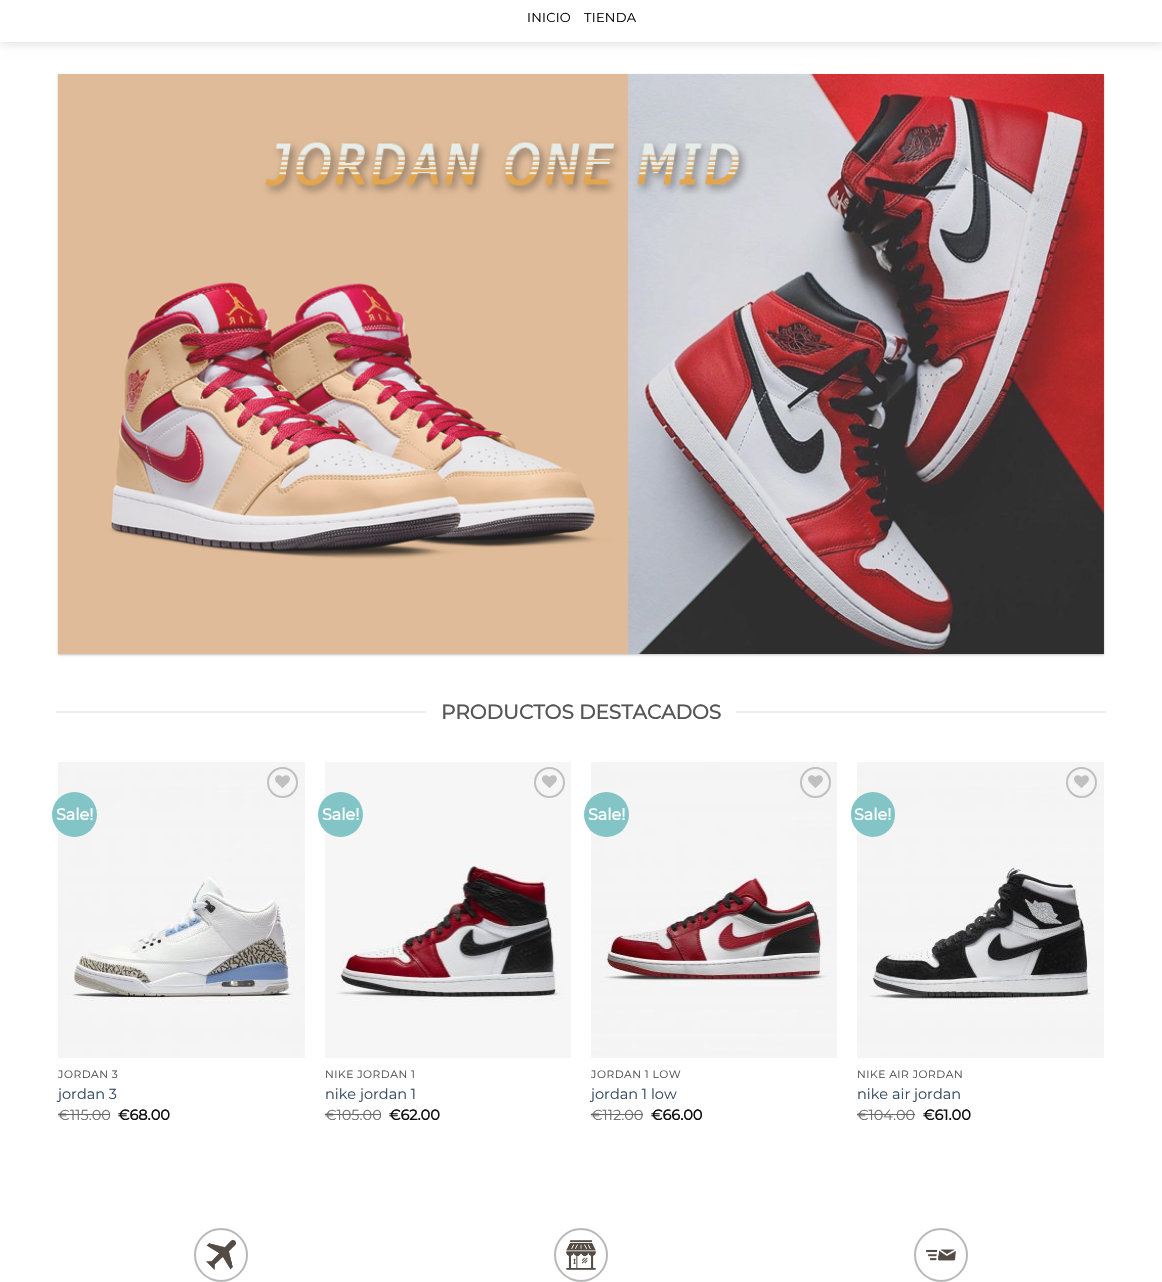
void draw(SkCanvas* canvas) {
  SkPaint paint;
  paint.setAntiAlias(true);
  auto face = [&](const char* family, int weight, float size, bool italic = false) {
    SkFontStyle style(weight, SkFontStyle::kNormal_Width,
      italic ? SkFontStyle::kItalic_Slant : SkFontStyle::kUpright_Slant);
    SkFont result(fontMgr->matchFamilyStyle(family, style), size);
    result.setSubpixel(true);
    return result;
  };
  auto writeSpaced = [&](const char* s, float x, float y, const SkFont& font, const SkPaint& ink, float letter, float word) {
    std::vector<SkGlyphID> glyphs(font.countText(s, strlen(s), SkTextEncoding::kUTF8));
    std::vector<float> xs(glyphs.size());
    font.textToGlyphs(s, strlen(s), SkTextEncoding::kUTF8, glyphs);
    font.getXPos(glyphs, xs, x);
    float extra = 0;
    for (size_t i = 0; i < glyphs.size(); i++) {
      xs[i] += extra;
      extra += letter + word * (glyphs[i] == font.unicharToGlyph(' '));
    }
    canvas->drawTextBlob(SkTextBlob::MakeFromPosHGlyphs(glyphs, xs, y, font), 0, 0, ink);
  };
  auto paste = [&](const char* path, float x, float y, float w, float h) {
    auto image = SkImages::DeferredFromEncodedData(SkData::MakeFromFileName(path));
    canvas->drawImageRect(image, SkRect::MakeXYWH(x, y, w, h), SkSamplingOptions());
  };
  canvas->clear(0xffffffff);
  paint.setColor(0x26000000);
  paint.setMaskFilter(SkMaskFilter::MakeBlur(kNormal_SkBlurStyle, 5));
  canvas->drawRect(SkRect::MakeXYWH(1, -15, 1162, 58), paint);
  paint.setMaskFilter(nullptr);
  paint.setColor(0xffffffff);
  canvas->drawRect(SkRect::MakeXYWH(0, 0, 1162, 42), paint);
  paint.setColor(0x3d000000);
  paint.setMaskFilter(SkMaskFilter::MakeBlur(kNormal_SkBlurStyle, 1));
  canvas->drawRect(SkRect::MakeXYWH(58, 75, 1046, 580), paint);
  paint.setMaskFilter(nullptr);
  paste("img/1.png", 58, 74, 1046, 580);
  paint.setColor(0xffeeeeee);
  canvas->drawRect(SkRect::MakeXYWH(56, 711, 370, 2), paint);
  canvas->drawRect(SkRect::MakeXYWH(736, 711, 370, 2), paint);
  paste("img/2.png", 58, 762, 247, 296);
  paint.setColor(0xff83c4c7);
  canvas->drawCircle(74.5f, 814.5f, 22.5f, paint);
  paint.setStroke(true);
  paint.setStrokeWidth(2);
  paint.setColor(0xffc0c0c0);
  canvas->drawCircle(282.5f, 782.5f, 14.5f, paint);
  paste("img/3.png", 275, 775, 15, 13);
  paste("img/4.png", 325, 762, 246, 296);
  paint.setStroke(false);
  paint.setColor(0xff83c4c7);
  canvas->drawCircle(340.5f, 814.5f, 22.5f, paint);
  paint.setStroke(true);
  paint.setColor(0xffc0c0c0);
  canvas->drawCircle(549.5f, 782.5f, 14.5f, paint);
  paste("img/5.png", 542, 775, 15, 13);
  paste("img/6.png", 591, 762, 246, 296);
  paint.setStroke(false);
  paint.setColor(0xff83c4c7);
  canvas->drawCircle(606.5f, 814.5f, 22.5f, paint);
  paint.setStroke(true);
  paint.setColor(0xffc0c0c0);
  canvas->drawCircle(815.5f, 782.5f, 14.5f, paint);
  paste("img/7.png", 808, 775, 15, 13);
  paste("img/8.png", 857, 762, 247, 296);
  paint.setStroke(false);
  paint.setColor(0xff83c4c7);
  canvas->drawRoundRect(SkRect::MakeXYWH(851, 792, 44, 45), 22, 22, paint);
  paint.setStroke(true);
  paint.setColor(0xffc0c0c0);
  canvas->drawCircle(1081.5f, 782.5f, 14.5f, paint);
  paste("img/3.png", 1074, 775, 15, 13);
  paint.setColor(0xffb8b8b8);
  canvas->drawCircle(221, 1255, 26, paint);
  paste("img/9.png", 206, 1240, 30, 30);
  canvas->drawCircle(581, 1255, 26, paint);
  paste("img/10.png", 566, 1240, 30, 30);
  canvas->drawCircle(941, 1255, 26, paint);
  paste("img/11.png", 926, 1249, 30, 12);
  auto f0 = face("Montserrat", 100, 13);
  paint.setStroke(false);
  paint.setColor(0xff000000);
  writeSpaced("INICIO", 527, 22, f0, paint, 0.25f, 0);
  writeSpaced("TIENDA", 584, 22, f0, paint, 0.25f, 0);
  auto f1 = face("Montserrat", 700, 20);
  paint.setColor(0xff555555);
  canvas->drawString("PRODUCTOS DESTACADOS", 441, 719, f1, paint);
  auto f2 = face("Montserrat", 700, 16);
  paint.setColor(0xffffffff);
  canvas->drawString("Sale!", 56, 820, f2, paint);
  auto f3 = face("Montserrat", 100, 10.75f);
  paint.setColor(0xff4d4d4d);
  writeSpaced("JORDAN 3", 58, 1078, f3, paint, 0.5f, 0);
  auto f4 = face("Montserrat", 100, 14.5f);
  paint.setColor(0xff334862);
  canvas->drawString("jordan 3", 58, 1099, f4, paint);
  paint.setColor(0xff707070);
  canvas->drawString("€", 58, 1120, f4, paint);
  paint.setColor(0xff666666);
  canvas->drawRect(SkRect::MakeXYWH(58, 1114, 12, 1), paint);
  paint.setColor(0xff707070);
  canvas->drawString("115.00", 70, 1120, f4, paint);
  paint.setColor(0xff666666);
  canvas->drawRect(SkRect::MakeXYWH(70, 1114, 40, 1), paint);
  auto f5 = face("Montserrat", 700, 14.5f);
  paint.setColor(0xff111111);
  canvas->drawString("€68.00", 118, 1120, f5, paint);
  paint.setColor(0xffffffff);
  canvas->drawString("Sale!", 322, 820, f2, paint);
  paint.setColor(0xff4d4d4d);
  writeSpaced("NIKE JORDAN 1", 325, 1078, f3, paint, 0.5f, 0);
  paint.setColor(0xff334862);
  canvas->drawString("nike jordan 1", 325, 1099, f4, paint);
  paint.setColor(0xff707070);
  canvas->drawString("€105.00", 325, 1120, f4, paint);
  paint.setColor(0xff666666);
  canvas->drawRect(SkRect::MakeXYWH(325, 1114, 56, 1), paint);
  paint.setColor(0xff111111);
  canvas->drawString("€62.00", 389, 1120, f5, paint);
  paint.setColor(0xffffffff);
  canvas->drawString("Sale!", 588, 820, f2, paint);
  paint.setColor(0xff4d4d4d);
  writeSpaced("JORDAN 1 LOW", 591, 1078, f3, paint, 0.5f, 0);
  paint.setColor(0xff334862);
  canvas->drawString("jordan 1 low", 591, 1099, f4, paint);
  paint.setColor(0xff707070);
  canvas->drawString("€112.00", 591, 1120, f4, paint);
  paint.setColor(0xff666666);
  canvas->drawRect(SkRect::MakeXYWH(591, 1114, 52, 1), paint);
  paint.setColor(0xff111111);
  canvas->drawString("€66.00", 651, 1120, f5, paint);
  paint.setColor(0xffffffff);
  canvas->drawString("Sale!", 854, 820, f2, paint);
  paint.setColor(0xff4d4d4d);
  writeSpaced("NIKE AIR JORDAN", 857, 1078, f3, paint, 0.5f, 0);
  paint.setColor(0xff334862);
  canvas->drawString("nike air jordan", 857, 1099, f4, paint);
  paint.setColor(0xff707070);
  canvas->drawString("€104.00", 857, 1120, f4, paint);
  paint.setColor(0xff666666);
  canvas->drawRect(SkRect::MakeXYWH(857, 1114, 58, 1), paint);
  paint.setColor(0xff111111);
  canvas->drawString("€61.00", 923, 1120, f5, paint);
}
